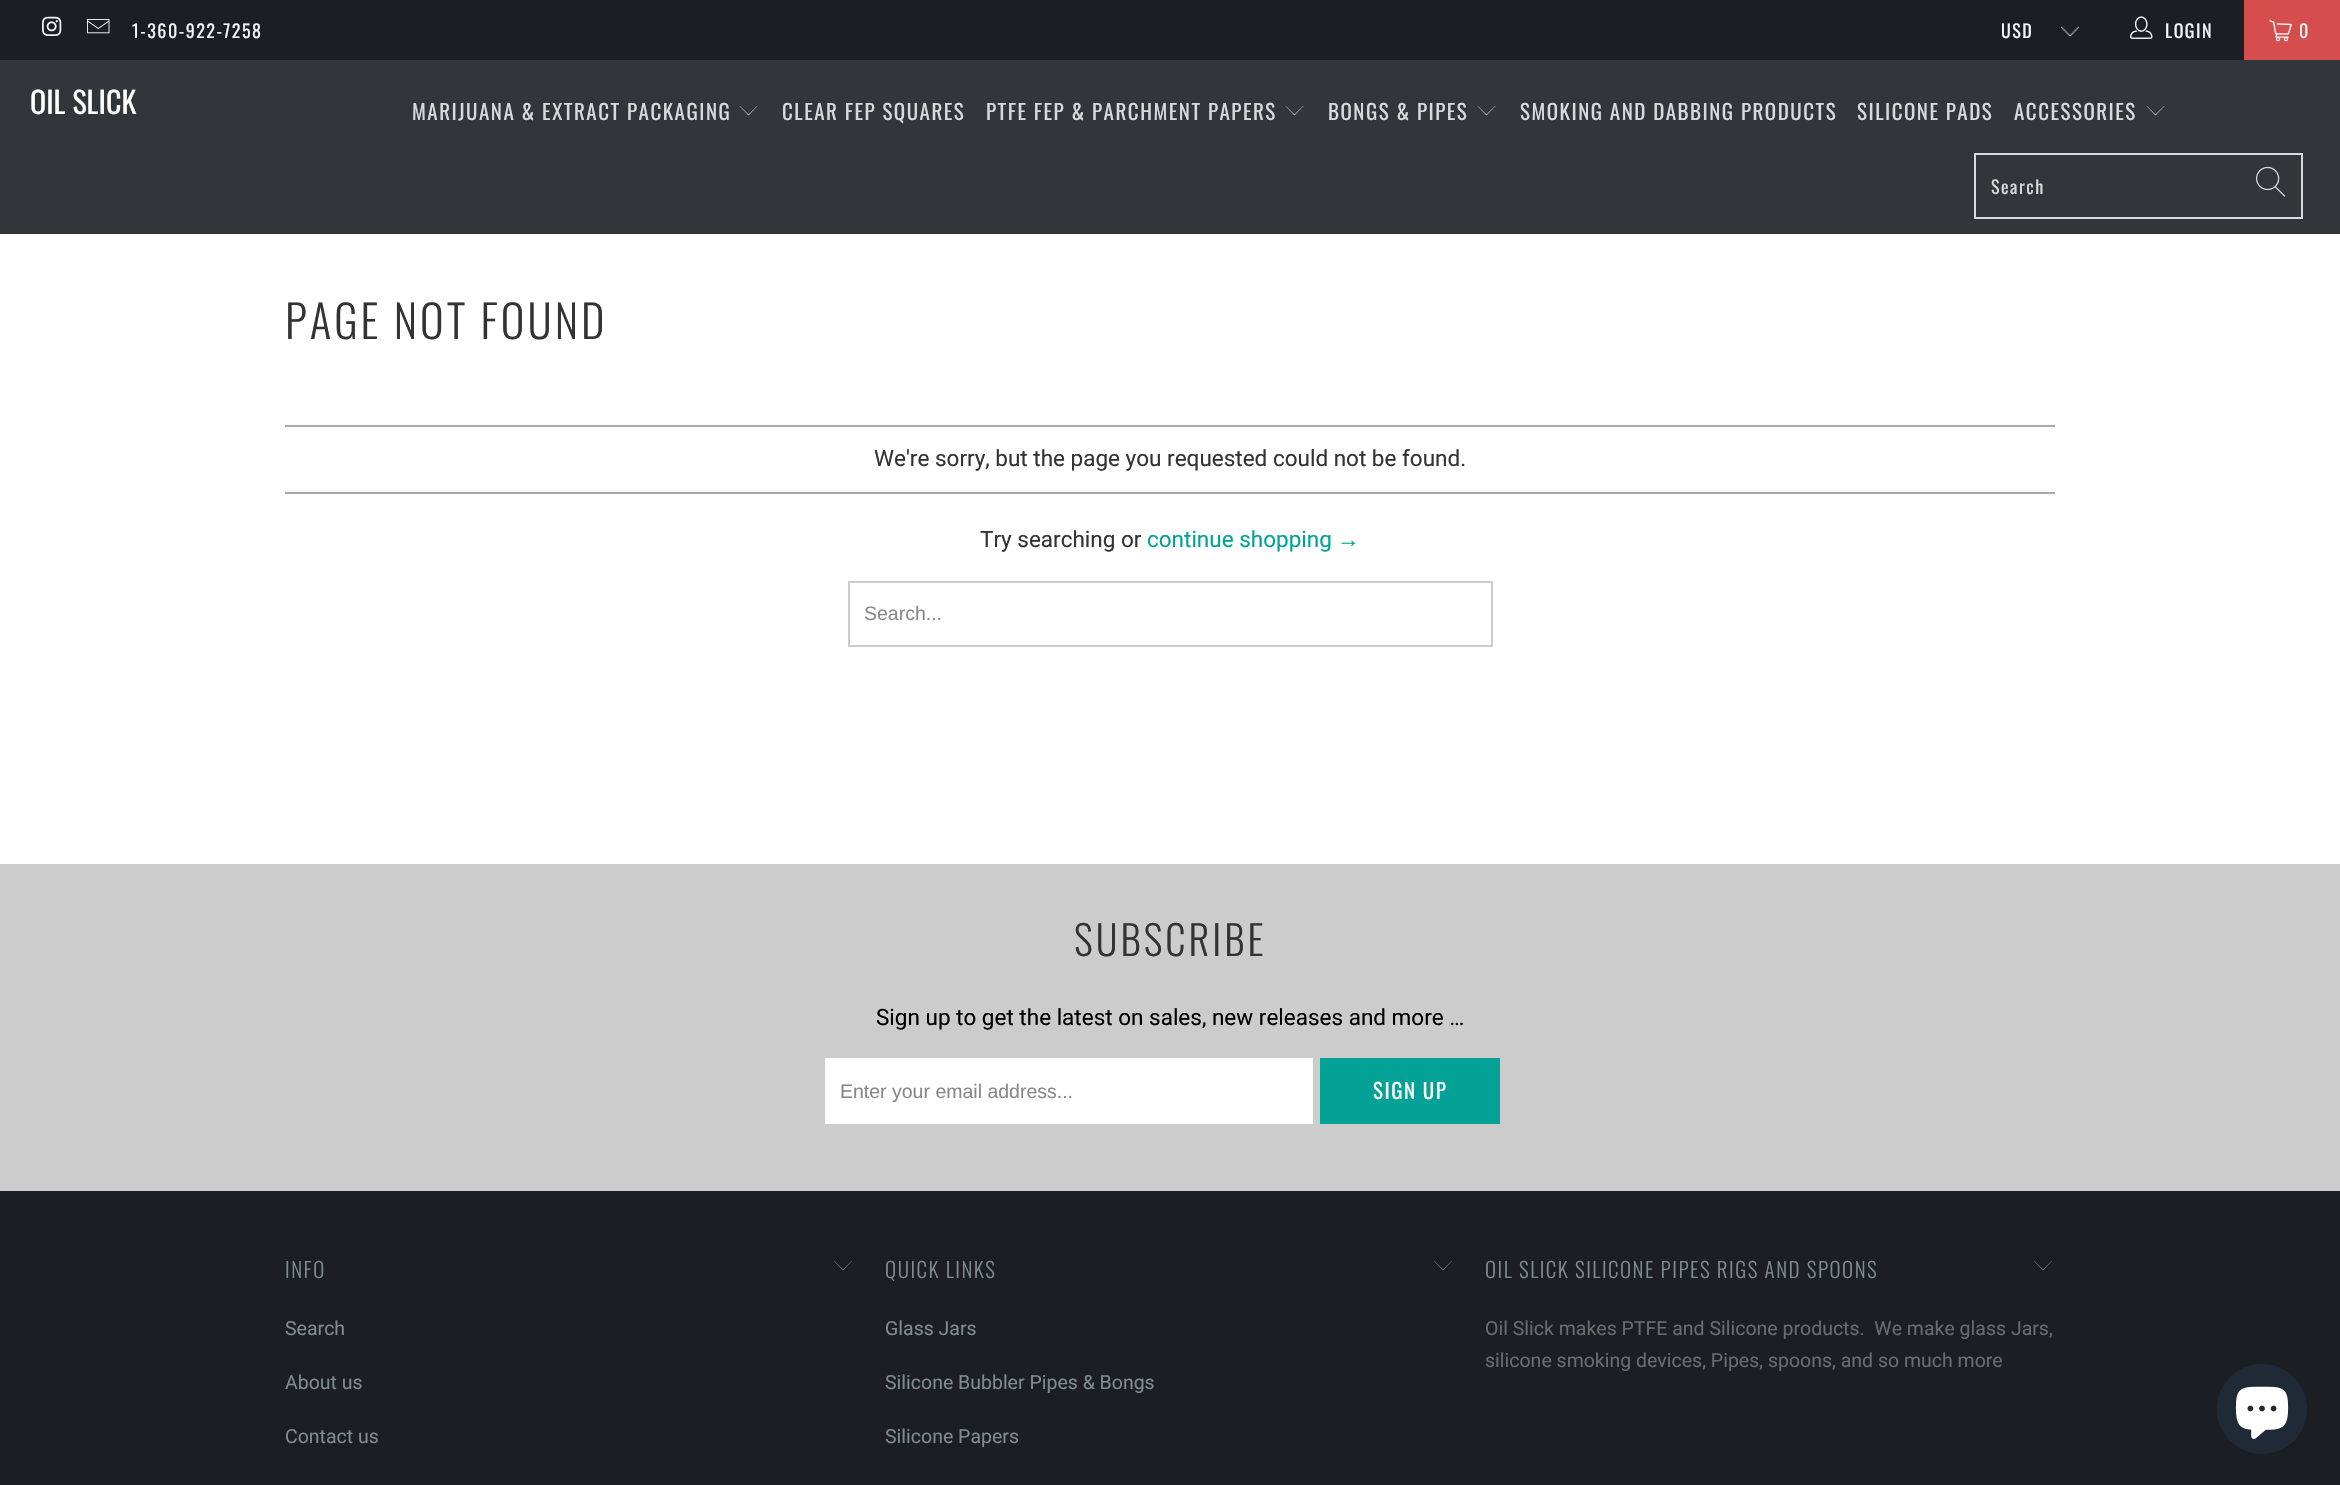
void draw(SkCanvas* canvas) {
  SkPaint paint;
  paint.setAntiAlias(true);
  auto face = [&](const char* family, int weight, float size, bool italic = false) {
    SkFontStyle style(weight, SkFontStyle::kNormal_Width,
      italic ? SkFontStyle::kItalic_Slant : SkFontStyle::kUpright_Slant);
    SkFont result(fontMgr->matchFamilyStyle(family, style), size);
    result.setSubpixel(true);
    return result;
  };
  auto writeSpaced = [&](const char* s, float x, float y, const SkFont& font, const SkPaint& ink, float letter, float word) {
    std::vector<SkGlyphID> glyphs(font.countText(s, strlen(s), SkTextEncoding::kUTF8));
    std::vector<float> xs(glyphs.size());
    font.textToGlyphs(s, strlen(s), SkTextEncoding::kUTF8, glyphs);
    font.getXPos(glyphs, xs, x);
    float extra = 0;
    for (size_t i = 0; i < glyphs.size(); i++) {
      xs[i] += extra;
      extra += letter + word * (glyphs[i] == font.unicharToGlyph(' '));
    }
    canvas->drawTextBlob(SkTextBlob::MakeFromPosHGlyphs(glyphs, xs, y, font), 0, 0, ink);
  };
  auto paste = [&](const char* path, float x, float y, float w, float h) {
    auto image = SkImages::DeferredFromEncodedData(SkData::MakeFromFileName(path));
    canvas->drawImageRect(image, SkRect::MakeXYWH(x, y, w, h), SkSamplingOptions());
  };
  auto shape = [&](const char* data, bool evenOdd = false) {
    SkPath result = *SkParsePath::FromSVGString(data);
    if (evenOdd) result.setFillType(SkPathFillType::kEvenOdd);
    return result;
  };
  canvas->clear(0xffffffff);
  paint.setColor(0xff1b1f23);
  canvas->drawRect(SkRect::MakeXYWH(0, 0, 2244, 60), paint);
  paste("img/1.png", 42, 16, 20, 20);
  paste("img/2.png", 87, 19, 23, 15);
  paste("img/3.png", 2061, 26, 19, 11);
  paste("img/4.png", 2130, 16, 23, 23);
  paint.setColor(0xffd54d4d);
  canvas->drawRect(SkRect::MakeXYWH(2244, 0, 96, 60), paint);
  paste("img/5.png", 2269, 20, 23, 22);
  paint.setColor(0xff323539);
  canvas->drawRect(SkRect::MakeXYWH(0, 60, 2340, 174), paint);
  paint.setColor(0xffd9d9d9);
  canvas->drawPath(shape("M748.5 115.5L739.5 106H740L748.5 114.5L757 106H757.5Z"), paint);
  canvas->drawPath(shape("M1294.5 115.5L1285.5 106H1286L1294.5 114.5L1303 106H1303.5Z"), paint);
  canvas->drawPath(shape("M1486.5 115.5L1477.5 106H1478L1486.5 114.5L1495 106H1495.5Z"), paint);
  canvas->drawPath(shape("M2155.5 115.5L2146.5 106H2147L2155.5 114.5L2164 106H2164.5Z"), paint);
  paint.setStroke(true);
  paint.setStrokeWidth(2);
  canvas->drawRect(SkRect::MakeXYWH(1975, 154, 327, 64), paint);
  paste("img/6.png", 2255, 166, 31, 31);
  paint.setStroke(false);
  paint.setColor(0xffaaaaaa);
  canvas->drawRect(SkRect::MakeXYWH(285, 425, 1770, 2), paint);
  canvas->drawRect(SkRect::MakeXYWH(285, 492, 1770, 2), paint);
  paint.setStroke(true);
  paint.setColor(0xffcccccc);
  canvas->drawRect(SkRect::MakeXYWH(849, 582, 643, 64), paint);
  paint.setStroke(false);
  {
    const struct { float x, y, w, h; SkColor color; } items[] = {
      {0, 864, 2340, 327, 0xffcccccc},
      {825, 1058, 488, 66, 0xffffffff},
      {1320, 1058, 180, 66, 0xff03a196},
      {0, 1191, 2340, 294, 0xff1b1f23},
    };
    for (auto [x, y, w, h, color] : items) {
      paint.setColor(color);
      canvas->drawRect(SkRect::MakeXYWH(x, y, w, h), paint);
    }
  }
  paint.setColor(0xff7f8c8d);
  canvas->drawPath(shape("M843 1270.5L834 1261H834.5L843 1269.5L851.5 1261H852Z"), paint);
  canvas->drawPath(shape("M1443 1270.5L1434 1261H1434.5L1443 1269.5L1451.5 1261H1452Z"), paint);
  canvas->drawPath(shape("M2043 1270.5L2034 1261H2034.5L2043 1269.5L2051.5 1261H2052Z"), paint);
  paint.setColor(0xff202a36);
  canvas->drawCircle(2262, 1409, 45, paint);
  paste("img/7.png", 2235, 1386, 54, 53);
  auto f0 = face("Oswald", 400, 18);
  paint.setColor(0xfff4f4f4);
  {
    const struct { const char* s; float x, y; } items[] = {
      {"1-360-922-7258", 132, 38},
      {"USD", 2001, 38},
      {"LOGIN", 2165, 38},
      {"0", 2299, 38},
    };
    for (auto [s, x, y] : items) {
      writeSpaced(s, x, y, f0, paint, 1.5f, 0);
    }
  }
  auto f1 = face("Oswald", 400, 30);
  paint.setColor(0xffffffff);
  canvas->drawString("OIL SLICK", 30, 114, f1, paint);
  auto f2 = face("Oswald", 400, 21);
  paint.setColor(0xffd9d9d9);
  {
    const struct { const char* s; float x, y; } items[] = {
      {"MARIJUANA & EXTRACT PACKAGING", 412, 120},
      {"CLEAR FEP SQUARES", 782, 120},
      {"PTFE FEP & PARCHMENT PAPERS", 986, 120},
      {"BONGS & PIPES", 1328, 120},
      {"SMOKING AND DABBING PRODUCTS", 1520, 120},
      {"SILICONE PADS", 1857, 120},
      {"ACCESSORIES", 2014, 120},
    };
    for (auto [s, x, y] : items) {
      writeSpaced(s, x, y, f2, paint, 1.5f, 0);
    }
  }
  writeSpaced("Search", 1991, 194, f0, paint, 1.5f, 0);
  auto f3 = face("Oswald", 300, 45);
  paint.setColor(0xff333333);
  writeSpaced("PAGE NOT FOUND", 285, 339, f3, paint, 3, 0);
  auto f4 = face("Roboto", 400, 22.5f);
  canvas->drawString("We're sorry, but the page you requested could not be found.", 874, 466, f4, paint);
  canvas->drawString("Try searching or", 980, 547, f4, paint);
  paint.setColor(0xff03a196);
  canvas->drawString("continue shopping", 1147, 547, f4, paint);
  auto f5 = face("Liberation Sans", 400, 22.5f);
  canvas->drawString("→", 1337, 547, f5, paint);
  auto f6 = face("Liberation Sans", 400, 19.5f);
  paint.setColor(0xff888888);
  canvas->drawString("Search...", 864, 620, f6, paint);
  auto f7 = face("Oswald", 300, 40.5f);
  paint.setColor(0xff333333);
  writeSpaced("SUBSCRIBE", 1074, 956, f7, paint, 3, 0);
  paint.setColor(0xff000000);
  canvas->drawString("Sign up to get the latest on sales, new releases and more …", 876, 1025, f4, paint);
  paint.setColor(0xff888888);
  canvas->drawString("Enter your email address...", 840, 1098, f6, paint);
  paint.setColor(0xffffffff);
  writeSpaced("SIGN UP", 1373, 1099, f2, paint, 1.5f, 0);
  auto f8 = face("Oswald", 300, 21);
  paint.setColor(0xff7f8c8d);
  writeSpaced("INFO", 285, 1278, f8, paint, 1.5f, 0);
  auto f9 = face("Roboto", 400, 19.5f);
  {
    const struct { const char* s; float x, y; } items[] = {
      {"Search", 285, 1335},
      {"About us", 285, 1389},
      {"Contact us", 285, 1443},
    };
    for (auto [s, x, y] : items) {
      canvas->drawString(s, x, y, f9, paint);
    }
  }
  writeSpaced("QUICK LINKS", 885, 1278, f8, paint, 1.5f, 0);
  {
    const struct { const char* s; float x, y; } items[] = {
      {"Glass Jars", 885, 1335},
      {"Silicone Bubbler Pipes & Bongs", 885, 1389},
      {"Silicone Papers", 885, 1443},
    };
    for (auto [s, x, y] : items) {
      canvas->drawString(s, x, y, f9, paint);
    }
  }
  writeSpaced("OIL SLICK SILICONE PIPES RIGS AND SPOONS", 1485, 1278, f8, paint, 1.5f, 0);
  paint.setColor(0xff6b6b6b);
  canvas->drawString("Oil Slick makes PTFE and Silicone products.  We make glass Jars,", 1485, 1335, f9, paint);
  canvas->drawString("silicone smoking devices, Pipes, spoons, and so much more", 1485, 1367, f9, paint);
}
